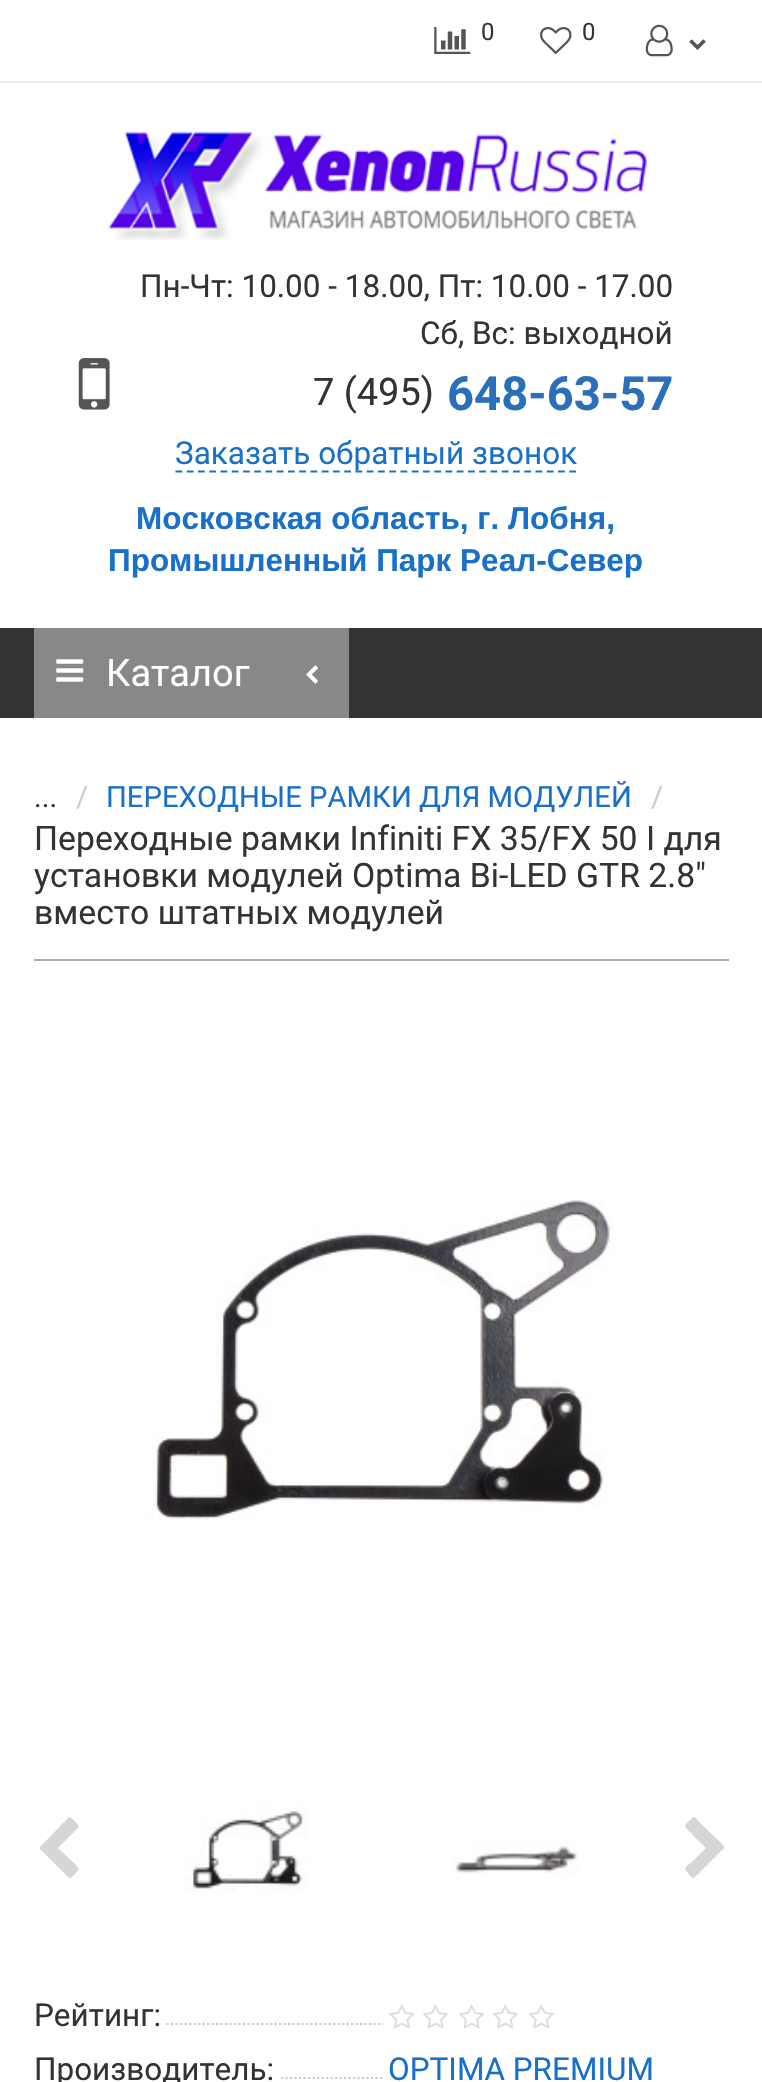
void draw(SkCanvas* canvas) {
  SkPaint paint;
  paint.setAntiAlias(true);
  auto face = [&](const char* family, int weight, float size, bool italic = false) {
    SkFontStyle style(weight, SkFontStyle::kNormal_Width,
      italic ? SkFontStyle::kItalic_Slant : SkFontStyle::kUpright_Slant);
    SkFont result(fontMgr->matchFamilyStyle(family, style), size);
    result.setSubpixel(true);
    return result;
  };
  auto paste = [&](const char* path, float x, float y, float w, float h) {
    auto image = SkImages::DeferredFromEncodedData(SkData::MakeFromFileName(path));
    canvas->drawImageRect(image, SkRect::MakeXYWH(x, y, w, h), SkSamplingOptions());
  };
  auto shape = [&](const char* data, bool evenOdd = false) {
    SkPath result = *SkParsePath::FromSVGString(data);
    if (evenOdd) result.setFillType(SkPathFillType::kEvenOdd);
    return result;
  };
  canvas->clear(0xffffffff);
  paint.setColor(0xffededed);
  canvas->drawRect(SkRect::MakeXYWH(0, 81, 762, 2), paint);
  paste("img/1.png", 434, 27, 37, 27);
  paste("img/2.png", 540, 27, 32, 27);
  paste("img/3.png", 645, 24, 28, 33);
  paste("img/4.png", 689, 39, 17, 11);
  paste("img/5.png", 108, 131, 539, 109);
  paste("img/6.png", 78, 358, 32, 52);
  paint.setStroke(true);
  paint.setStrokeWidth(2.2f);
  paint.setColor(0xff1970c9);
  paint.setPathEffect(SkDashPathEffect::Make({{6.75f, 4.5f}}, 0));
  canvas->drawPath(shape("M175.5 471.5H576"), paint);
  paint.setPathEffect(nullptr);
  paint.setStroke(false);
  paint.setColor(0xff333333);
  canvas->drawRect(SkRect::MakeXYWH(0, 628, 762, 90), paint);
  paint.setColor(0xff888888);
  canvas->drawRect(SkRect::MakeXYWH(34, 628, 315, 90), paint);
  paste("img/7.png", 56, 659, 28, 23);
  paste("img/8.png", 306, 665, 12, 19);
  paint.setColor(0xffadadad);
  canvas->drawRect(SkRect::MakeXYWH(34, 959, 695, 2), paint);
  paste("img/9.png", 149, 1200, 465, 320);
  paste("img/10.png", 183, 1805, 125, 87);
  paste("img/11.png", 453, 1839, 125, 35);
  paint.setColor(0xffd6d6d6);
  canvas->drawPath(shape("M78 1828L58 1848L75 1864C80 1870 80 1869 74 1875C69 1880 69 1878 64 1873L40 1849V1847L68 1818C70 1816 72 1819 74 1820L78 1825C79 1826 79 1827 78 1828Z"), paint);
  canvas->drawPath(shape("M723 1849L695 1877C693 1880 689 1875 688 1873C682 1868 686 1867 693 1861L706 1848C703 1845 685 1828 685 1826C685 1824 688 1822 689 1821C695 1815 694 1816 700 1823L719 1841C719 1842 725 1845 724 1848Z"), paint);
  canvas->save();
  canvas->clipRect(SkRect::MakeXYWH(34, 1987, 349, 54));
  paint.setStroke(true);
  paint.setColor(0xffcccccc);
  paint.setPathEffect(SkDashPathEffect::Make({{2.25f, 2.25f}}, 0));
  canvas->drawPath(shape("M166.5 2024H515"), paint);
  paint.setPathEffect(nullptr);
  canvas->restore();
  paste("img/12.png", 389, 2004, 26, 25);
  paste("img/13.png", 423, 2004, 25, 25);
  paste("img/13.png", 459, 2004, 25, 25);
  paste("img/14.png", 493, 2004, 25, 25);
  paste("img/14.png", 529, 2004, 25, 25);
  canvas->save();
  canvas->clipRect(SkRect::MakeXYWH(34, 2041, 349, 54));
  paint.setPathEffect(SkDashPathEffect::Make({{2.25f, 2.25f}}, 0));
  canvas->drawPath(shape("M281 2078H628"), paint);
  paint.setPathEffect(nullptr);
  canvas->restore();
  auto f0 = face("Roboto", 400, 24);
  paint.setStroke(false);
  paint.setColor(0xff333333);
  canvas->drawString("0", 481, 40, f0, paint);
  canvas->drawString("0", 582, 40, f0, paint);
  auto f1 = face("Roboto", 400, 31.5f);
  canvas->drawString("Пн-Чт: 10.00 - 18.00, Пт: 10.00 - 17.00", 140, 297, f1, paint);
  canvas->drawString("Сб, Вс: выходной", 420, 344, f1, paint);
  auto f2 = face("Roboto", 400, 38);
  canvas->drawString("7 (495)", 313, 405, f2, paint);
  auto f3 = face("Roboto", 700, 47.25f);
  paint.setColor(0xff2a6fba);
  canvas->drawString("648-63-57", 447, 410, f3, paint);
  paint.setColor(0xff1970c9);
  canvas->drawString("Заказать обратный звонок", 175, 464, f1, paint);
  auto f4 = face("Liberation Sans", 700, 31.5f);
  canvas->drawString("Московская область, г. Лобня,", 136, 529, f4, paint);
  canvas->drawString("Промышленный Парк Реал-Север", 108, 571, f4, paint);
  paint.setColor(0xffffffff);
  canvas->drawString("Каталог", 106, 686, f2, paint);
  auto f5 = face("Roboto", 400, 29.25f);
  paint.setColor(0xff1970c9);
  canvas->drawString("ПЕРЕХОДНЫЕ РАМКИ ДЛЯ МОДУЛЕЙ", 106, 807, f5, paint);
  paint.setColor(0xffcccccc);
  canvas->drawString("/", 651, 807, f5, paint);
  auto f6 = face("Roboto", 400, 33.75f);
  paint.setColor(0xff333333);
  {
    const struct { const char* s; float x, y; } items[] = {
      {"Переходные рамки Infiniti FX 35/FX 50 I для", 34, 850},
      {"установки модулей Optima Bi-LED GTR 2.8\"", 34, 887},
      {"вместо штатных модулей", 34, 924},
    };
    for (auto [s, x, y] : items) {
      canvas->drawString(s, x, y, f6, paint);
    }
  }
  canvas->drawString("...", 34, 807, f5, paint);
  paint.setColor(0xffcccccc);
  canvas->drawString("/", 76, 807, f5, paint);
  paint.setColor(0xff333333);
  canvas->drawString("Рейтинг:", 34, 2026, f1, paint);
  canvas->drawString("Производитель:", 34, 2080, f1, paint);
  paint.setColor(0xff1970c9);
  canvas->drawString("OPTIMA PREMIUM", 388, 2080, f1, paint);
}
